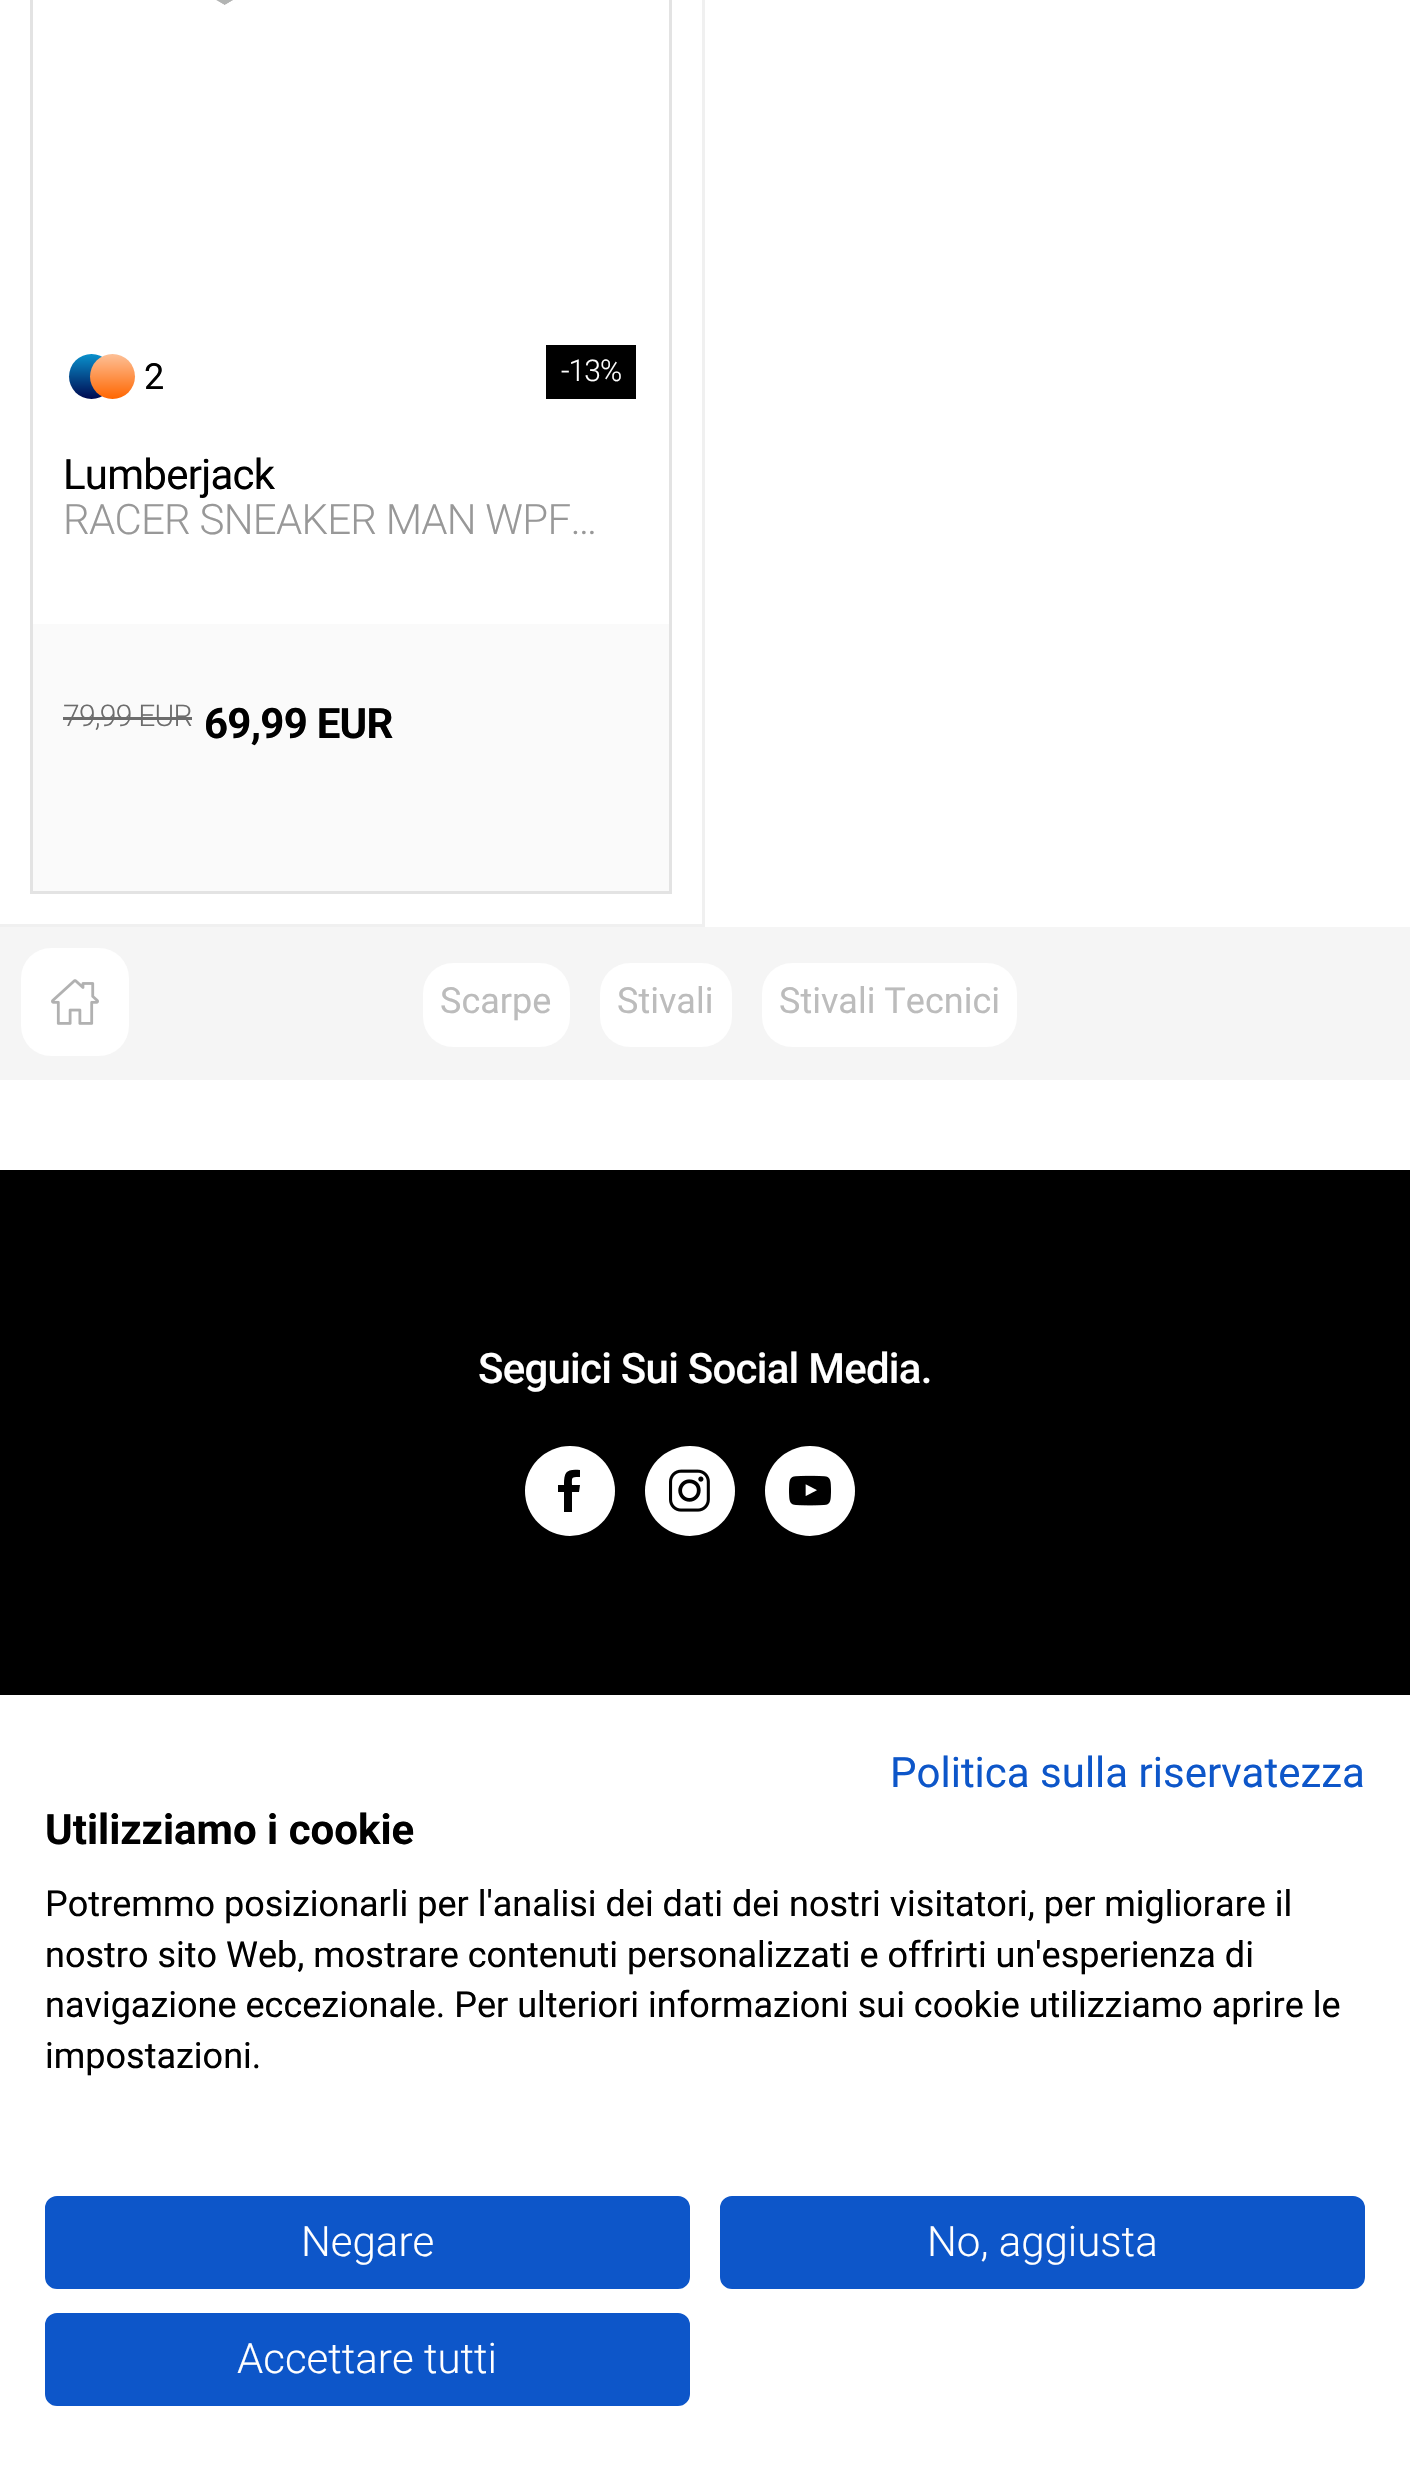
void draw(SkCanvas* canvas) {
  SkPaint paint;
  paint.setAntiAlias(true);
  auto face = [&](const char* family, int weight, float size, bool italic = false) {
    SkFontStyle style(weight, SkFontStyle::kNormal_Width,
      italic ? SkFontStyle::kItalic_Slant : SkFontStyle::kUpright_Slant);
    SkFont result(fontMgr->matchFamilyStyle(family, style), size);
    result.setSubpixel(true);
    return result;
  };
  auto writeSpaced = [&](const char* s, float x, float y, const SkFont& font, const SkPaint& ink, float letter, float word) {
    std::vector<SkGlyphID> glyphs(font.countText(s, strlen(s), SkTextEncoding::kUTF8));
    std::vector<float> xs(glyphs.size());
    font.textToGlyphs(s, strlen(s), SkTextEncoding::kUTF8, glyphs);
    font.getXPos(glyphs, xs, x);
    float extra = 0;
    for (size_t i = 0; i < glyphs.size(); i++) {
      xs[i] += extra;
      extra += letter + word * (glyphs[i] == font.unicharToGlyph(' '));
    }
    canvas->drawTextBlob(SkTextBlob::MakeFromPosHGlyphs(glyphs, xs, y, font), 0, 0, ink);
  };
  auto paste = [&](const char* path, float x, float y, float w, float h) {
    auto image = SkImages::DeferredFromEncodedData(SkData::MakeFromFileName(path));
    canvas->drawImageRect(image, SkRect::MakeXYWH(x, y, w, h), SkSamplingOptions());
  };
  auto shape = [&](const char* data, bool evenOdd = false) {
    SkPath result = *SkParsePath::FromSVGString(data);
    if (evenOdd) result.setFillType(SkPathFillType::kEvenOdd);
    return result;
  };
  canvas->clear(0xffffffff);
  paint.setColor(0xfff0f0f0);
  canvas->drawRect(SkRect::MakeXYWH(702, 0, 3, 927), paint);
  canvas->drawRect(SkRect::MakeXYWH(0, 924, 705, 3), paint);
  paint.setStroke(true);
  paint.setStrokeWidth(3);
  paint.setColor(0xffe3e3e3);
  canvas->drawRect(SkRect::MakeXYWH(31.5f, -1.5f, 639, 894), paint);
  paste("img/1.png", 216, 0, 17, 5);
  paint.setStroke(false);
  {
    const SkColor colors[] = {0xff0991cc, 0xff000950};
    const float stops[] = {0, 1};
    const SkPoint ends[] = {{92, 354}, {92, 399}};
    paint.setShader(SkGradientShader::MakeLinear(ends, colors, stops, 2, SkTileMode::kClamp));
    paint.setAlpha(255);
  }
  canvas->drawCircle(91.5f, 376.5f, 22.5f, paint);
  {
    const SkColor colors[] = {0xfffdc097, 0xffff6600};
    const float stops[] = {0, 1};
    const SkPoint ends[] = {{113, 354}, {113, 399}};
    paint.setShader(SkGradientShader::MakeLinear(ends, colors, stops, 2, SkTileMode::kClamp));
    paint.setAlpha(255);
  }
  canvas->drawCircle(112.5f, 376.5f, 22.5f, paint);
  paint.setShader(nullptr);
  {
    const struct { float x, y, w, h; SkColor color; } items[] = {
      {546, 345, 90, 54, 0xff000000},
      {33, 624, 636, 267, 0xfffafafa},
      {63, 717, 129, 3, 0xff6c6c6c},
      {0, 927, 1410, 153, 0xfff5f5f5},
    };
    for (auto [x, y, w, h, color] : items) {
      paint.setColor(color);
      canvas->drawRect(SkRect::MakeXYWH(x, y, w, h), paint);
    }
  }
  paint.setColor(0xffffffff);
  canvas->drawRoundRect(SkRect::MakeXYWH(21, 948, 108, 108), 30, 30, paint);
  paste("img/2.png", 51, 979, 48, 46);
  canvas->drawRoundRect(SkRect::MakeXYWH(423, 963, 147, 84), 30, 30, paint);
  canvas->drawRoundRect(SkRect::MakeXYWH(600, 963, 132, 84), 30, 30, paint);
  canvas->drawRoundRect(SkRect::MakeXYWH(762, 963, 255, 84), 30, 30, paint);
  paint.setColor(0xff000000);
  canvas->drawRect(SkRect::MakeXYWH(0, 1170, 1410, 525), paint);
  paint.setColor(0xffffffff);
  canvas->drawCircle(570, 1491, 45, paint);
  paint.setColor(0xff000000);
  canvas->drawPath(shape("M572 1512V1492H579L580 1485H572C572 1477 571 1477 580 1477V1470C567 1469 564 1471 564 1485H558V1492H564V1512Z"), paint);
  paint.setColor(0xffffffff);
  canvas->drawCircle(690, 1491, 45, paint);
  paste("img/3.png", 669, 1469, 41, 43);
  canvas->drawCircle(810, 1491, 45, paint);
  paste("img/4.png", 789, 1475, 42, 31);
  paint.setColor(0xff0d56c9);
  canvas->drawRoundRect(SkRect::MakeXYWH(46.5f, 2197.5f, 642, 90), 10.5f, 10.5f, paint);
  paint.setStroke(true);
  canvas->drawRoundRect(SkRect::MakeXYWH(46.5f, 2197.5f, 642, 90), 10.5f, 10.5f, paint);
  paint.setStroke(false);
  canvas->drawRoundRect(SkRect::MakeXYWH(721.5f, 2197.5f, 642, 90), 10.5f, 10.5f, paint);
  paint.setStroke(true);
  canvas->drawRoundRect(SkRect::MakeXYWH(721.5f, 2197.5f, 642, 90), 10.5f, 10.5f, paint);
  paint.setStroke(false);
  canvas->drawRoundRect(SkRect::MakeXYWH(46.5f, 2314.5f, 642, 90), 10.5f, 10.5f, paint);
  paint.setStroke(true);
  canvas->drawRoundRect(SkRect::MakeXYWH(46.5f, 2314.5f, 642, 90), 10.5f, 10.5f, paint);
  auto f0 = face("Roboto", 400, 36);
  paint.setStroke(false);
  paint.setColor(0xff000000);
  writeSpaced("2", 144, 389, f0, paint, -0.75f, 0);
  auto f1 = face("Roboto", 300, 30);
  paint.setColor(0xffffffff);
  writeSpaced("-13%", 561, 381, f1, paint, -1, 0);
  auto f2 = face("Roboto", 400, 42);
  paint.setColor(0xff000000);
  writeSpaced("Lumberjack", 63, 489, f2, paint, -0.75f, 0);
  auto f3 = face("Roboto", 300, 42);
  paint.setColor(0xff989898);
  writeSpaced("RACER SNEAKER MAN WPF…", 63, 534, f3, paint, -0.75f, 0);
  paint.setColor(0xff6c6c6c);
  writeSpaced("79,99 EUR", 63, 726, f1, paint, -0.75f, 0);
  auto f4 = face("Roboto", 700, 42);
  paint.setColor(0xff000000);
  writeSpaced("69,99 EUR", 204, 738, f4, paint, -0.75f, 0);
  paint.setColor(0xffbcbcbc);
  {
    const struct { const char* s; float x, y; } items[] = {
      {"Scarpe", 440, 1013},
      {"Stivali", 617, 1013},
      {"Stivali Tecnici", 779, 1013},
    };
    for (auto [s, x, y] : items) {
      canvas->drawString(s, x, y, f0, paint);
    }
  }
  auto f5 = face("Roboto", 500, 42);
  paint.setColor(0xffffffff);
  writeSpaced("Seguici Sui Social Media.", 478, 1383, f5, paint, -0.75f, 0);
  paint.setColor(0xff0d56c9);
  canvas->drawString("Politica sulla riservatezza", 890, 1787, f2, paint);
  paint.setColor(0xff000000);
  canvas->drawString("Utilizziamo i cookie", 45, 1844, f4, paint);
  {
    const struct { const char* s; float x, y; } items[] = {
      {"Potremmo posizionarli per l'analisi dei dati dei nostri visitatori, per migliorare il", 45, 1916},
      {"nostro sito Web, mostrare contenuti personalizzati e offrirti un'esperienza di", 45, 1967},
      {"navigazione eccezionale. Per ulteriori informazioni sui cookie utilizziamo aprire le", 45, 2017},
      {"impostazioni.", 45, 2068},
    };
    for (auto [s, x, y] : items) {
      canvas->drawString(s, x, y, f0, paint);
    }
  }
  paint.setColor(0xffffffff);
  {
    const struct { const char* s; float x, y; } items[] = {
      {"Negare", 301, 2256},
      {"No, aggiusta", 927, 2256},
      {"Accettare tutti", 237, 2373},
    };
    for (auto [s, x, y] : items) {
      canvas->drawString(s, x, y, f3, paint);
    }
  }
}
